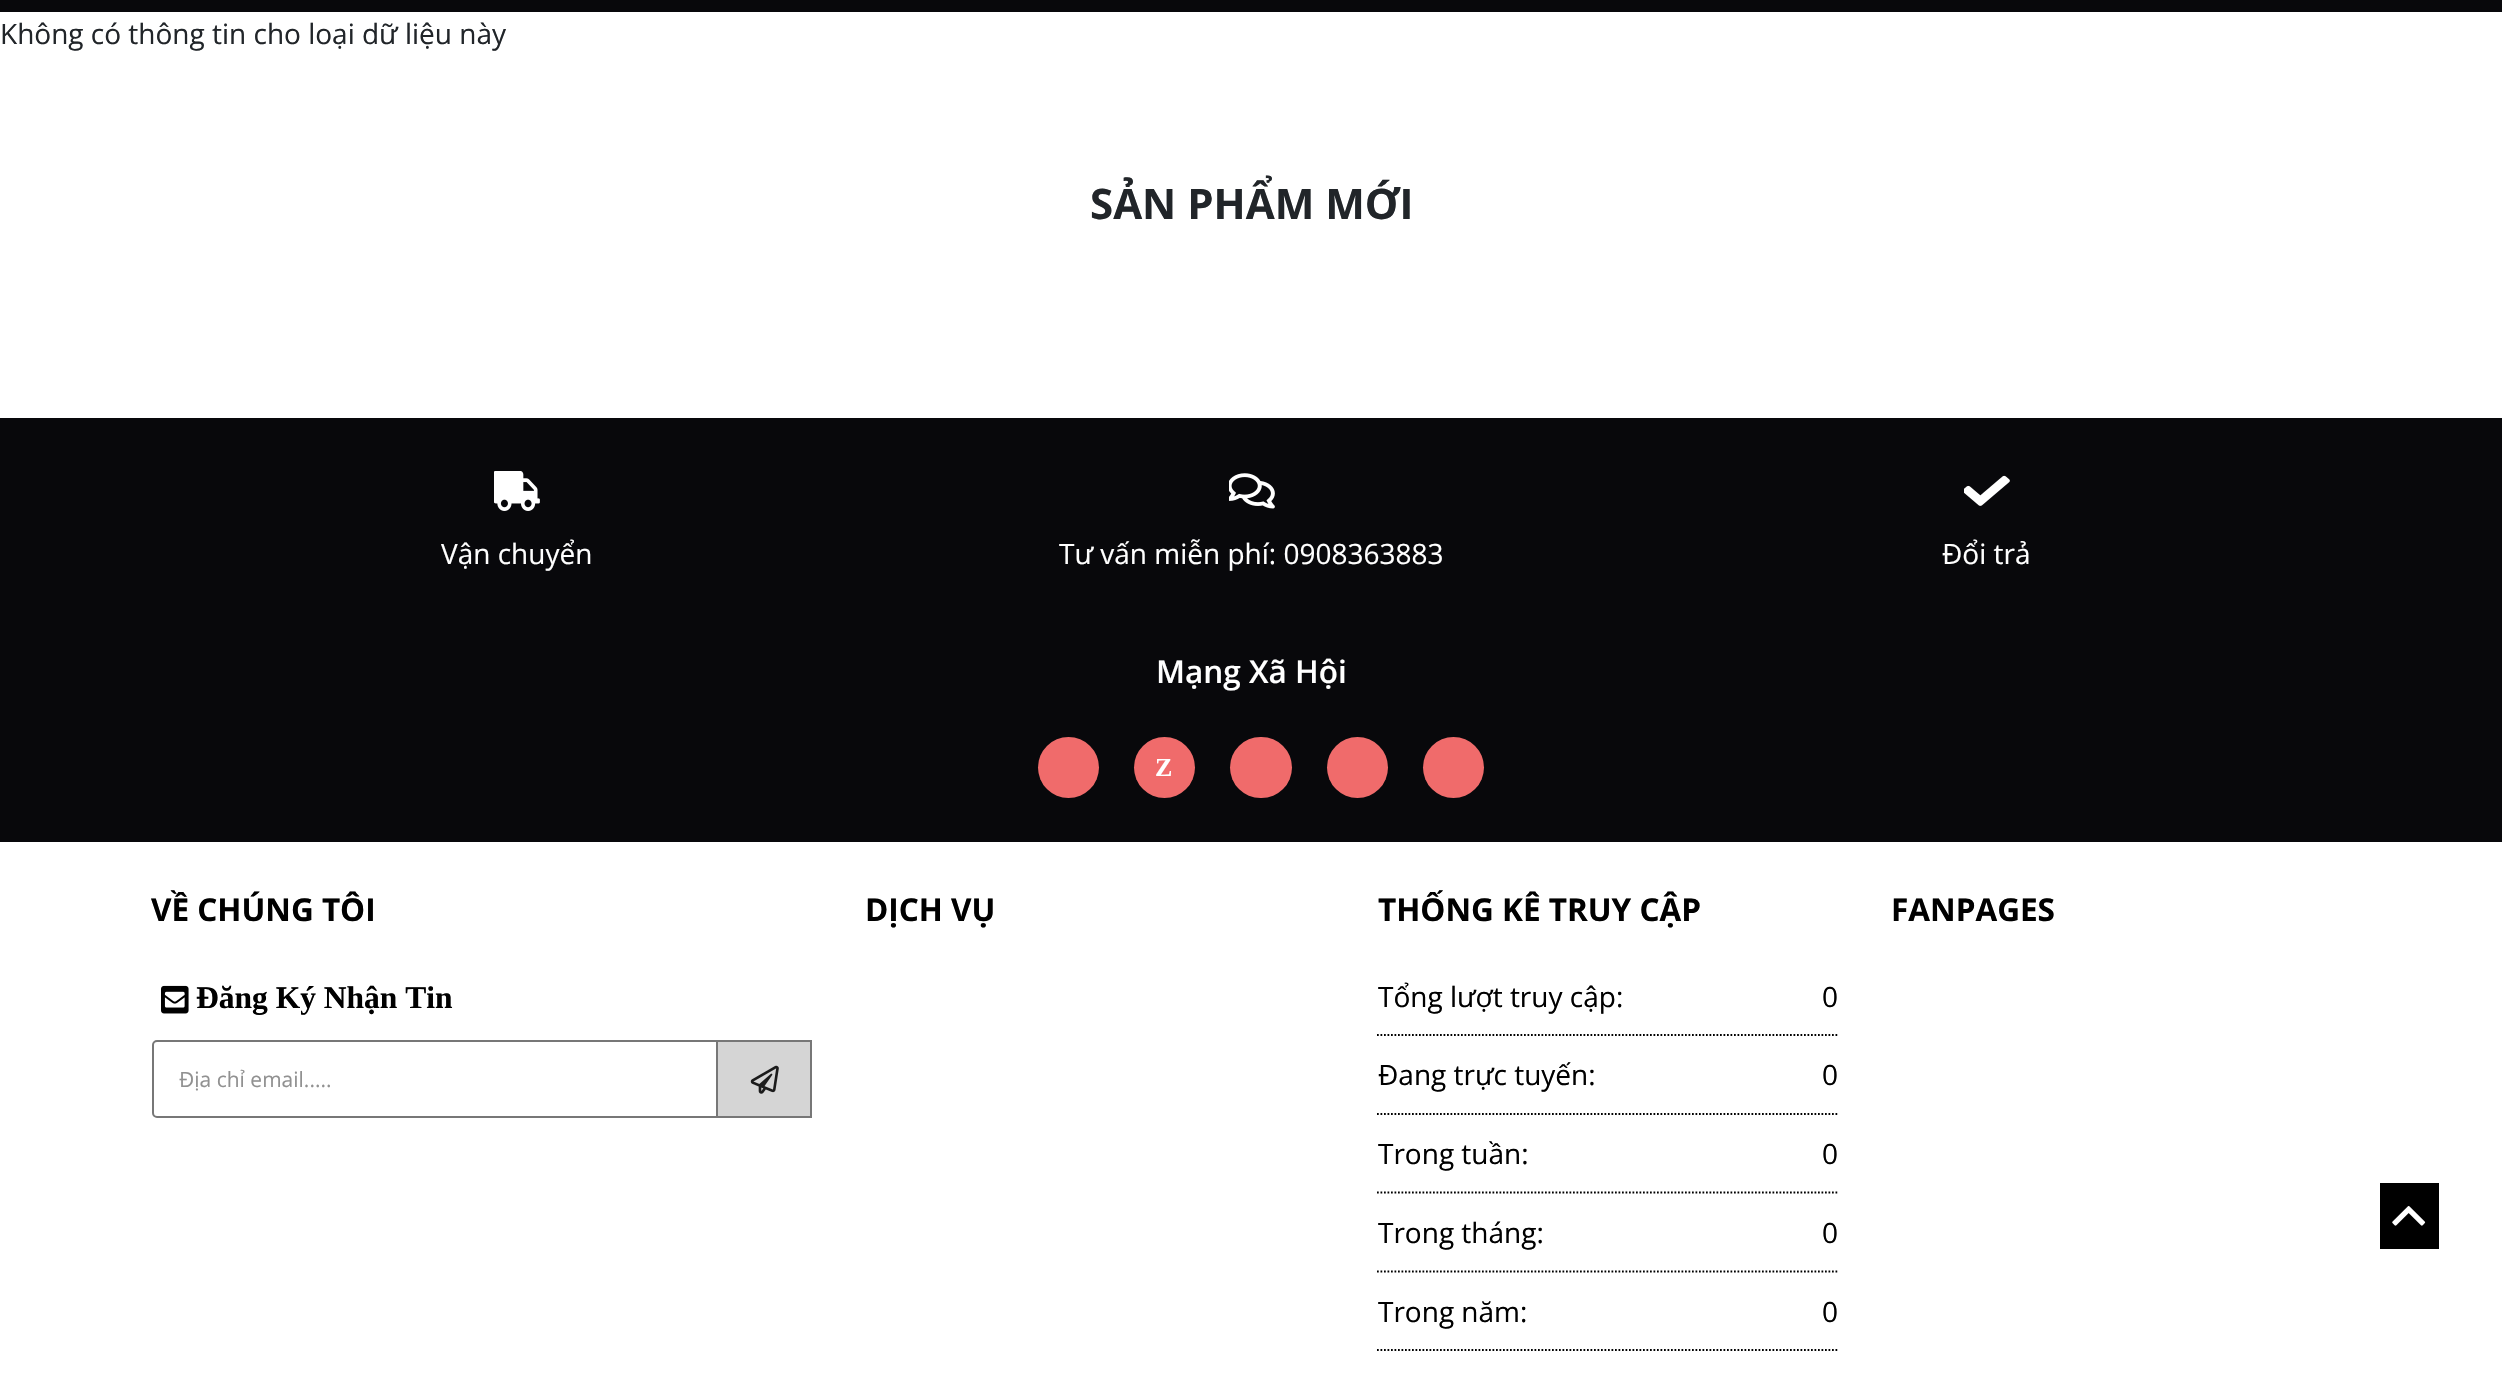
void draw(SkCanvas* canvas) {
  SkPaint paint;
  paint.setAntiAlias(true);
  auto face = [&](const char* family, int weight, float size, bool italic = false) {
    SkFontStyle style(weight, SkFontStyle::kNormal_Width,
      italic ? SkFontStyle::kItalic_Slant : SkFontStyle::kUpright_Slant);
    SkFont result(fontMgr->matchFamilyStyle(family, style), size);
    result.setSubpixel(true);
    return result;
  };
  auto paste = [&](const char* path, float x, float y, float w, float h) {
    auto image = SkImages::DeferredFromEncodedData(SkData::MakeFromFileName(path));
    canvas->drawImageRect(image, SkRect::MakeXYWH(x, y, w, h), SkSamplingOptions());
  };
  auto shape = [&](const char* data, bool evenOdd = false) {
    SkPath result = *SkParsePath::FromSVGString(data);
    if (evenOdd) result.setFillType(SkPathFillType::kEvenOdd);
    return result;
  };
  canvas->clear(0xffffffff);
  paint.setColor(0xff08080b);
  canvas->drawRect(SkRect::MakeXYWH(0, 0, 2502, 12), paint);
  canvas->drawRect(SkRect::MakeXYWH(0, 418, 2502, 424), paint);
  paste("img/1.png", 494, 471, 46, 40);
  paste("img/2.png", 1229, 473, 46, 36);
  paste("img/3.png", 1964, 475, 46, 31);
  paint.setColor(0xfff06b6b);
  canvas->drawCircle(1068.5f, 767.5f, 30.5f, paint);
  canvas->drawCircle(1164.5f, 767.5f, 30.5f, paint);
  canvas->drawRoundRect(SkRect::MakeXYWH(1230, 737, 62, 61), 30.5f, 30.5f, paint);
  canvas->drawCircle(1357.5f, 767.5f, 30.5f, paint);
  canvas->drawCircle(1453.5f, 767.5f, 30.5f, paint);
  paste("img/4.png", 161, 985, 28, 29);
  paint.setStroke(true);
  paint.setStrokeWidth(2);
  paint.setColor(0xff777777);
  canvas->drawRoundRect(SkRect::MakeXYWH(153, 1041, 658, 76), 4, 4, paint);
  paint.setStroke(false);
  paint.setColor(0xffd5d5d5);
  canvas->drawRect(SkRect::MakeXYWH(717, 1041, 94, 76), paint);
  paint.setStroke(true);
  paint.setColor(0xff777777);
  canvas->drawRect(SkRect::MakeXYWH(717, 1041, 94, 76), paint);
  paste("img/5.png", 750, 1065, 29, 29);
  paint.setStrokeWidth(1.8f);
  paint.setColor(0xff000000);
  paint.setPathEffect(SkDashPathEffect::Make({{1.75f, 1.75f}}, 0));
  canvas->drawPath(shape("M1377 1035H1837.5"), paint);
  paint.setPathEffect(nullptr);
  paint.setPathEffect(SkDashPathEffect::Make({{1.75f, 1.75f}}, 0));
  canvas->drawPath(shape("M1377 1114H1837.5"), paint);
  paint.setPathEffect(nullptr);
  paint.setPathEffect(SkDashPathEffect::Make({{1.75f, 1.75f}}, 0));
  canvas->drawPath(shape("M1377 1192.5H1837.5"), paint);
  paint.setPathEffect(nullptr);
  paint.setPathEffect(SkDashPathEffect::Make({{1.75f, 1.75f}}, 0));
  canvas->drawPath(shape("M1377 1271.5H1837.5"), paint);
  paint.setPathEffect(nullptr);
  paint.setPathEffect(SkDashPathEffect::Make({{1.75f, 1.75f}}, 0));
  canvas->drawPath(shape("M1377 1350H1837.5"), paint);
  paint.setPathEffect(nullptr);
  paint.setStroke(false);
  canvas->drawRect(SkRect::MakeXYWH(2380, 1183, 59, 66), paint);
  paste("img/6.png", 2392, 1206, 34, 20);
  auto f0 = face("Open Sans", 400, 28);
  paint.setColor(0xff212529);
  canvas->drawString("Không có thông tin cho loại dữ liệu này", 0, 44, f0, paint);
  auto f1 = face("Open Sans", 700, 42);
  canvas->drawString("SẢN PHẨM MỚI", 1090, 219, f1, paint);
  paint.setColor(0xffffffff);
  {
    const struct { const char* s; float x, y; } items[] = {
      {"Vận chuyển", 441, 564},
      {"Tư vấn miễn phí: 0908363883", 1059, 564},
      {"Đổi trả", 1942, 564},
    };
    for (auto [s, x, y] : items) {
      canvas->drawString(s, x, y, f0, paint);
    }
  }
  auto f2 = face("Open Sans", 600, 31.5f);
  canvas->drawString("Mạng Xã Hội", 1156, 683, f2, paint);
  auto f3 = face("Liberation Serif", 700, 26);
  canvas->drawString("Z", 1155, 776, f3, paint);
  auto f4 = face("Open Sans", 700, 31.5f);
  paint.setColor(0xff000000);
  canvas->drawString("VỀ CHÚNG TÔI", 151, 921, f4, paint);
  auto f5 = face("Liberation Serif", 700, 31.5f);
  canvas->drawString("Đăng Ký Nhận Tin", 196, 1008, f5, paint);
  auto f6 = face("Open Sans", 400, 21);
  paint.setColor(0xff919191);
  canvas->drawString("Địa chỉ email.....", 179, 1087, f6, paint);
  paint.setColor(0xff000000);
  canvas->drawString("DỊCH VỤ", 865, 921, f4, paint);
  canvas->drawString("THỐNG KÊ TRUY CẬP", 1378, 921, f4, paint);
  {
    const struct { const char* s; float x, y; } items[] = {
      {"Tổng lượt truy cập:", 1378, 1007},
      {"0", 1822, 1007},
      {"Đang trực tuyến:", 1378, 1085},
      {"0", 1822, 1085},
      {"Trong tuần:", 1378, 1164},
      {"0", 1822, 1164},
      {"Trong tháng:", 1378, 1243},
      {"0", 1822, 1243},
      {"Trong năm:", 1378, 1322},
      {"0", 1822, 1322},
    };
    for (auto [s, x, y] : items) {
      canvas->drawString(s, x, y, f0, paint);
    }
  }
  canvas->drawString("FANPAGES", 1891, 921, f4, paint);
}
